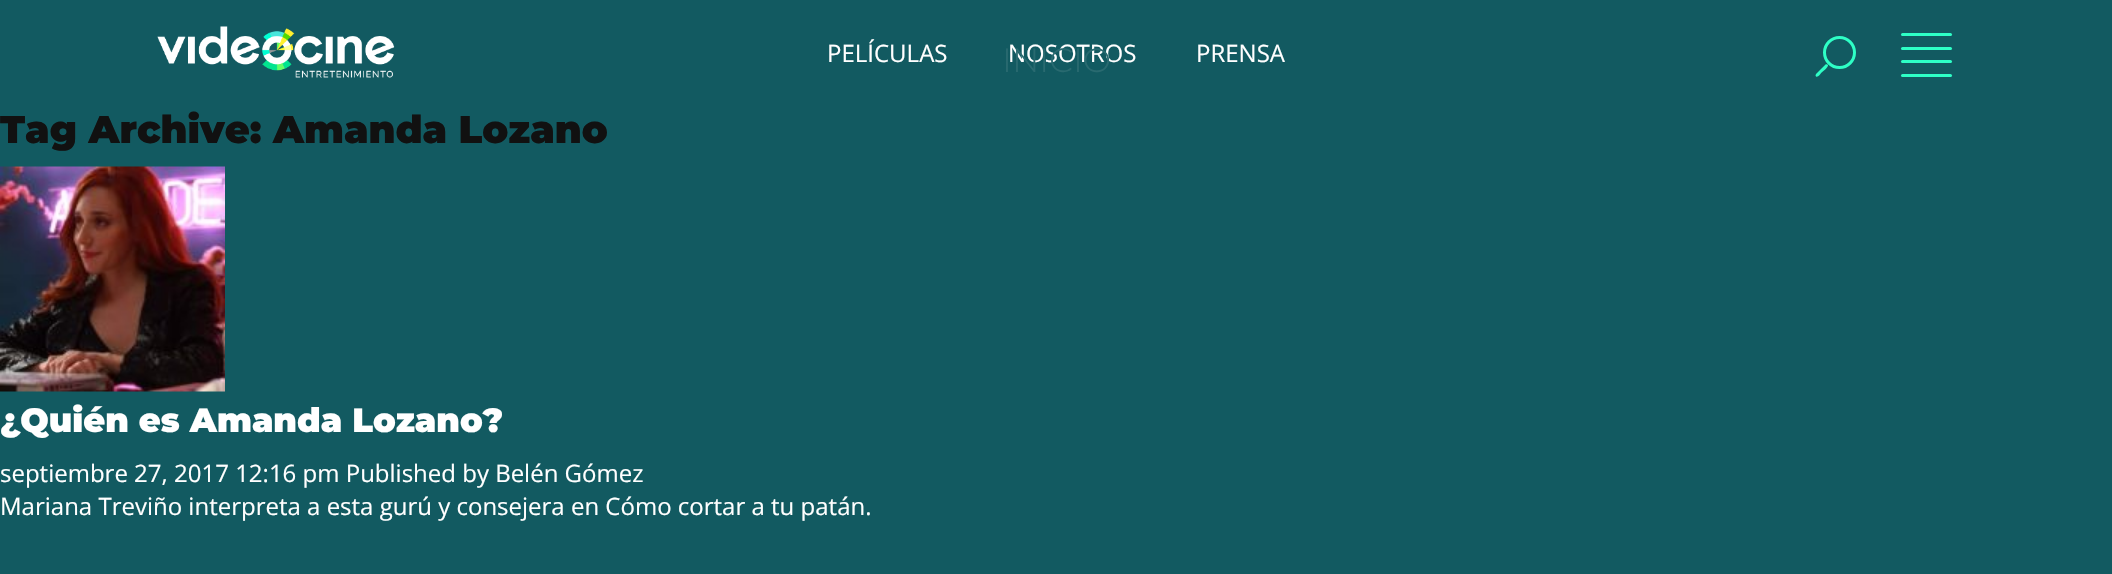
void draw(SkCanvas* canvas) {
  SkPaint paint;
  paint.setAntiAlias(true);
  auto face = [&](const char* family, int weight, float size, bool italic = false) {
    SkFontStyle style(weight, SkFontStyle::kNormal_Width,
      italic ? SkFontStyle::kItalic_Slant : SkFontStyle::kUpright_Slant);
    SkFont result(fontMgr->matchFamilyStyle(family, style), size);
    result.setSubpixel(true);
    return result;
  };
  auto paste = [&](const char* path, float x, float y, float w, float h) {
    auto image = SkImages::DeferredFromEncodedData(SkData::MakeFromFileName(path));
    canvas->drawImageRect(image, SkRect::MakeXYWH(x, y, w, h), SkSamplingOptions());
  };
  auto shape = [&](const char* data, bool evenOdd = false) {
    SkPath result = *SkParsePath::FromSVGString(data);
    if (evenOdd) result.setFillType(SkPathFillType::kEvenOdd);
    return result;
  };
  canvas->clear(0xff125a61);
  paste("img/1.png", 157, 26, 238, 52);
  paint.setColor(0xff2effc6);
  canvas->drawPath(shape("M1816 74L1825.5 64.5C1826.5 64 1827.5 64.5 1828 65C1828.5 67 1822.5 72 1821 73C1820.5 74 1818 77.5 1816 76.5L1815.5 75.5Z"), paint);
  paint.setStroke(true);
  paint.setStrokeWidth(3);
  canvas->drawCircle(1839.5f, 52.5f, 15, paint);
  paint.setStroke(false);
  canvas->drawRoundRect(SkRect::MakeXYWH(1901, 33, 51, 3), 1.5f, 1.5f, paint);
  canvas->drawRoundRect(SkRect::MakeXYWH(1901, 47, 51, 3), 1.5f, 1.5f, paint);
  canvas->drawRoundRect(SkRect::MakeXYWH(1901, 60, 51, 3), 1.5f, 1.5f, paint);
  canvas->drawRoundRect(SkRect::MakeXYWH(1901, 74, 51, 3), 1.5f, 1.5f, paint);
  paste("img/2.png", 0, 166, 225, 226);
  auto f0 = face("Open Sans", 400, 24);
  paint.setColor(0xffffffff);
  {
    const struct { const char* s; float x, y; } items[] = {
      {"PELÍCULAS", 827, 62},
      {"NOSOTROS", 1008, 62},
      {"PRENSA", 1196, 62},
    };
    for (auto [s, x, y] : items) {
      canvas->drawString(s, x, y, f0, paint);
    }
  }
  auto f1 = face("Montserrat", 900, 38.4f);
  paint.setColor(0xff111111);
  canvas->drawString("Tag Archive: Amanda Lozano", 0, 143, f1, paint);
  auto f2 = face("Montserrat", 900, 33.6f);
  paint.setColor(0xffffffff);
  canvas->drawString("¿Quién es Amanda Lozano?", 0, 432, f2, paint);
  canvas->drawString("septiembre 27, 2017 12:16 pm Published by Belén Gómez", 0, 482, f0, paint);
  canvas->drawString("Mariana Treviño interpreta a esta gurú y consejera en Cómo cortar a tu patán.", 0, 515, f0, paint);
  auto f3 = face("Montserrat", 300, 33.6f);
  paint.setColor(0xff296a70);
  canvas->drawString("INICIO", 1002, 72, f3, paint);
}
